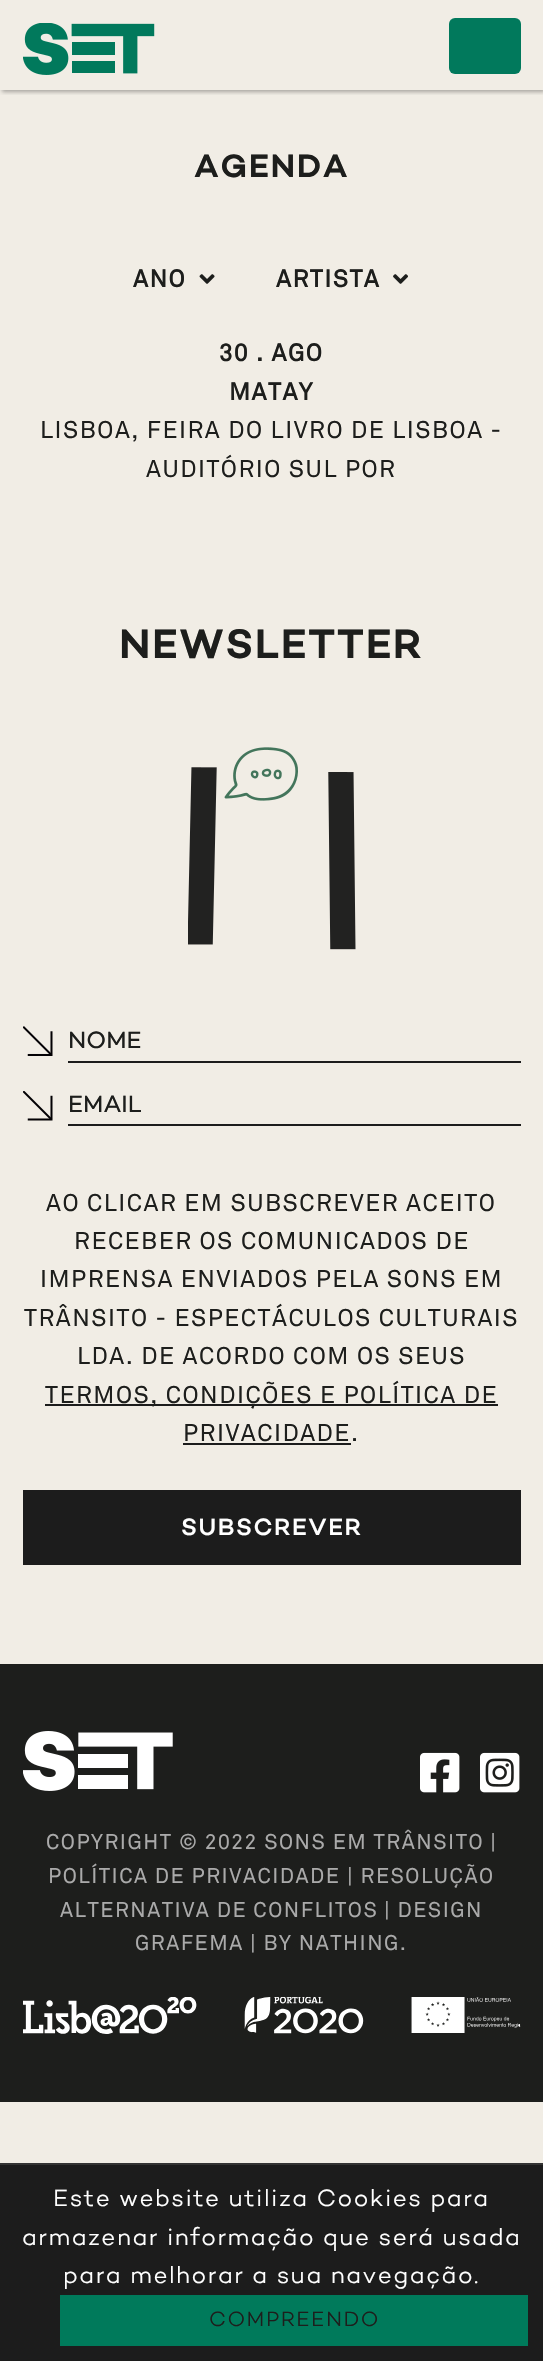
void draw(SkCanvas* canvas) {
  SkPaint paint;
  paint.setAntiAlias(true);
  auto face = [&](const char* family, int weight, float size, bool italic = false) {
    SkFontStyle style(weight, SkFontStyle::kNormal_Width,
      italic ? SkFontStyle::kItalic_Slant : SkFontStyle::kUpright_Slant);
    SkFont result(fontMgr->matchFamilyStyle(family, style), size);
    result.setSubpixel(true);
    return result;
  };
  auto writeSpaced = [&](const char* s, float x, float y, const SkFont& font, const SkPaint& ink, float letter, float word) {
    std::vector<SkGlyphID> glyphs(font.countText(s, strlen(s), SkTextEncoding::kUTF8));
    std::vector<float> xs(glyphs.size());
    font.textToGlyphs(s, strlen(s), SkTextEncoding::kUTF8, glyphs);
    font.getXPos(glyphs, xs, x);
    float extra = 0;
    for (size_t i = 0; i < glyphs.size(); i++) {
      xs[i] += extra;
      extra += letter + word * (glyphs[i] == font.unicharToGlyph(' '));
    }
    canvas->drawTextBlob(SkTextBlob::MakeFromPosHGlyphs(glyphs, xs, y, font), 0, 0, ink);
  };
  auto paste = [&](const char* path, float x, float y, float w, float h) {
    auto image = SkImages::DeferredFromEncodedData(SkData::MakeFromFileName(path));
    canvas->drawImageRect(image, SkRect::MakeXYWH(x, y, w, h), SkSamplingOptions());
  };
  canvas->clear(0xfff1ede5);
  canvas->save();
  canvas->clipRect(SkRect::MakeXYWH(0, 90, 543, 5));
  paint.setColor(0x4d000000);
  paint.setMaskFilter(SkMaskFilter::MakeBlur(kNormal_SkBlurStyle, 2));
  canvas->drawRect(SkRect::MakeXYWH(2, 2, 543, 90), paint);
  paint.setMaskFilter(nullptr);
  canvas->restore();
  paste("img/1.png", 23, 23, 132, 52);
  paint.setColor(0xff01795c);
  canvas->drawRoundRect(SkRect::MakeXYWH(449, 18, 72, 56), 6, 6, paint);
  paste("img/2.png", 199, 274, 16, 10);
  paste("img/3.png", 393, 274, 15, 10);
  paste("img/4.png", 188, 747, 168, 203);
  paste("img/5.png", 23, 1026, 30, 30);
  paint.setColor(0xff1c1c1c);
  canvas->drawRect(SkRect::MakeXYWH(68, 1061, 453, 2), paint);
  paste("img/6.png", 23, 1091, 30, 30);
  {
    const struct { float x, y, w, h; SkColor color; } items[] = {
      {68, 1124, 453, 2, 0xff1c1c1c},
      {45, 1404, 453, 2, 0xff1c1c1c},
      {183, 1443, 168, 2, 0xff1c1c1c},
      {23, 1490, 498, 75, 0xff1c1c1c},
      {0, 1664, 543, 438, 0xff1d1e1c},
    };
    for (auto [x, y, w, h, color] : items) {
      paint.setColor(color);
      canvas->drawRect(SkRect::MakeXYWH(x, y, w, h), paint);
    }
  }
  paste("img/7.png", 23, 1731, 150, 60);
  paste("img/8.png", 420, 1752, 40, 41);
  paste("img/9.png", 480, 1752, 40, 41);
  paste("img/10.png", 23, 1997, 498, 37);
  {
    const struct { float x, y, w, h; SkColor color; } items[] = {
      {0, 2165, 543, 196, 0xff1c1c1c},
      {0, 2163, 543, 2, 0xff333333},
      {60, 2295, 468, 51, 0xff007a5b},
    };
    for (auto [x, y, w, h, color] : items) {
      paint.setColor(color);
      canvas->drawRect(SkRect::MakeXYWH(x, y, w, h), paint);
    }
  }
  auto f0 = face("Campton", 600, 33);
  paint.setColor(0xff1d1e1c);
  writeSpaced("AGENDA", 194, 177, f0, paint, 1.5f, 0);
  auto f1 = face("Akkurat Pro", 700, 24);
  {
    const struct { const char* s; float x, y; } items[] = {
      {"ANO", 133, 287},
      {"ARTISTA", 276, 287},
      {"30 . AGO", 219, 361},
      {"MATAY", 229, 400},
    };
    for (auto [s, x, y] : items) {
      writeSpaced(s, x, y, f1, paint, 1.5f, 0);
    }
  }
  auto f2 = face("Akkurat Pro", 400, 24);
  writeSpaced("LISBOA, FEIRA DO LIVRO DE LISBOA -", 40, 438, f2, paint, 1.5f, 0);
  writeSpaced("AUDITÓRIO SUL POR", 146, 477, f2, paint, 1.5f, 0);
  auto f3 = face("Campton", 600, 42);
  writeSpaced("NEWSLETTER", 119, 658, f3, paint, 1.5f, 0);
  auto f4 = face("Campton", 400, 24);
  canvas->drawString("NOME", 68, 1048, f4, paint);
  canvas->drawString("EMAIL", 68, 1112, f4, paint);
  {
    const struct { const char* s; float x, y; } items[] = {
      {"AO CLICAR EM SUBSCREVER ACEITO", 46, 1211},
      {"RECEBER OS COMUNICADOS DE", 74, 1249},
      {"IMPRENSA ENVIADOS PELA SONS EM", 40, 1287},
      {"TRÂNSITO - ESPECTÁCULOS CULTURAIS", 24, 1326},
      {"LDA. DE ACORDO COM OS SEUS", 77, 1364},
      {"TERMOS, CONDIÇÕES E POLÍTICA DE", 45, 1403},
      {"PRIVACIDADE", 183, 1441},
      {".", 351, 1441},
    };
    for (auto [s, x, y] : items) {
      writeSpaced(s, x, y, f2, paint, 1.5f, 0);
    }
  }
  auto f5 = face("Campton", 500, 24);
  paint.setColor(0xffffffff);
  writeSpaced("SUBSCREVER", 181, 1535, f5, paint, 1.5f, 0);
  auto f6 = face("Akkurat Pro", 400, 21);
  paint.setColor(0xffaaaaaa);
  {
    const struct { const char* s; float x, y; } items[] = {
      {"COPYRIGHT © 2022 SONS EM TRÂNSITO |", 46, 1849},
      {"POLÍTICA DE PRIVACIDADE", 48, 1883},
      {"| RESOLUÇÃO", 347, 1883},
      {"ALTERNATIVA DE CONFLITOS", 60, 1917},
      {"| DESIGN", 384, 1917},
      {"GRAFEMA", 135, 1950},
      {"| BY NATHING.", 250, 1950},
    };
    for (auto [s, x, y] : items) {
      writeSpaced(s, x, y, f6, paint, 1.5f, 0);
    }
  }
  auto f7 = face("Campton", 300, 24);
  paint.setColor(0xffffffff);
  {
    const struct { const char* s; float x, y; } items[] = {
      {"Este website utiliza Cookies para", 53, 2206},
      {"armazenar informação que será usada", 22, 2245},
      {"para melhorar a sua navegação.", 63, 2283},
    };
    for (auto [s, x, y] : items) {
      writeSpaced(s, x, y, f7, paint, 1.5f, 0);
    }
  }
  auto f8 = face("Campton", 300, 21);
  paint.setColor(0xff1d1e1c);
  writeSpaced("COMPREENDO", 209, 2326, f8, paint, 1.5f, 0);
}
